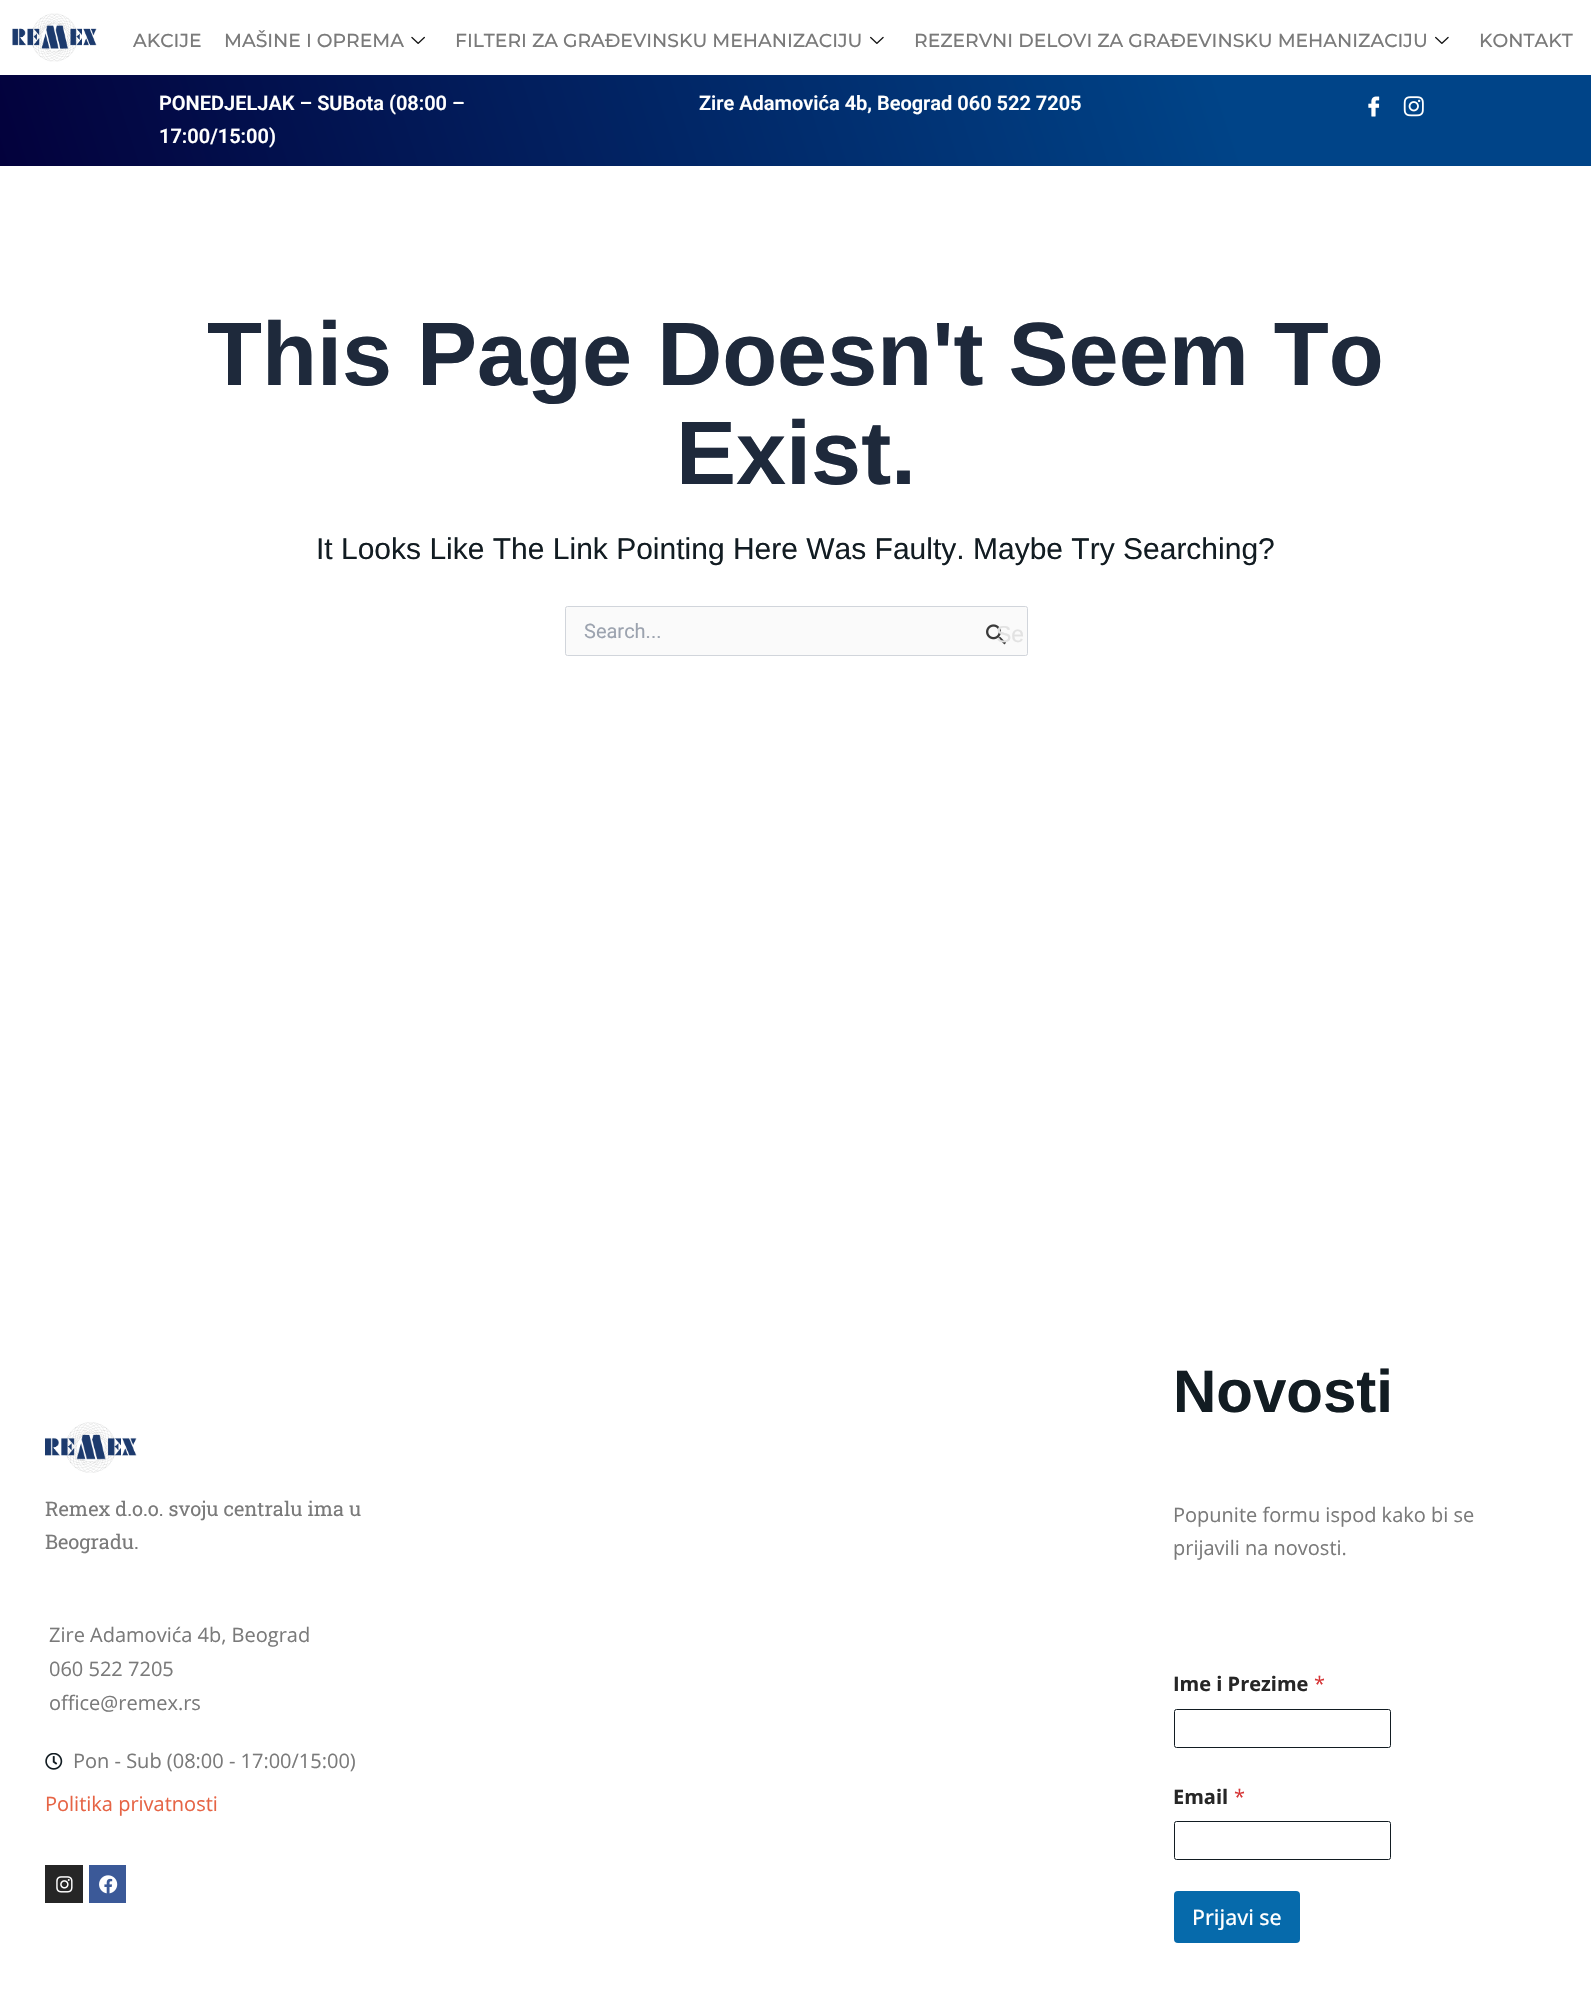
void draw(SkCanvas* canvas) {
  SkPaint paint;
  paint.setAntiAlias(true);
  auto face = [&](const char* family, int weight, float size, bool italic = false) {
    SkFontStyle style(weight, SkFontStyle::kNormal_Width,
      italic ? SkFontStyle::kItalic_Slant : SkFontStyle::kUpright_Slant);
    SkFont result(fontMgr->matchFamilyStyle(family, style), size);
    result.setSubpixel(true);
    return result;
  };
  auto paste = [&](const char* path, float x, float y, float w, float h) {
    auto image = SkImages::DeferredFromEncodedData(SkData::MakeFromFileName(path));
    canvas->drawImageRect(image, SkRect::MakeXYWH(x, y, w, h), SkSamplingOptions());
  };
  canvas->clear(0xffffffff);
  paste("img/1.png", 12, 13, 85, 49);
  paste("img/2.png", 411, 36, 14, 8);
  paste("img/3.png", 870, 36, 14, 8);
  paste("img/3.png", 1435, 36, 14, 8);
  {
    const SkColor colors[] = {0xff03013c, 0xff004488};
    const float stops[] = {0, 0.77f};
    const SkPoint ends[] = {{63, 359}, {1529, -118}};
    paint.setShader(SkGradientShader::MakeLinear(ends, colors, stops, 2, SkTileMode::kClamp));
    paint.setAlpha(255);
  }
  canvas->drawRect(SkRect::MakeXYWH(0, 75, 1591, 91), paint);
  paste("img/4.png", 1368, 96, 12, 21);
  paste("img/5.png", 1403, 96, 21, 21);
  paint.setShader(nullptr);
  paint.setColor(0xfffafafa);
  canvas->drawRoundRect(SkRect::MakeXYWH(565.5f, 606.5f, 462, 49), 2, 2, paint);
  paint.setStroke(true);
  paint.setStrokeWidth(1);
  paint.setColor(0xffd1d5db);
  canvas->drawRoundRect(SkRect::MakeXYWH(565.5f, 606.5f, 462, 49), 2, 2, paint);
  paste("img/6.png", 986, 624, 20, 21);
  paste("img/7.png", 45, 1422, 92, 51);
  paste("img/8.png", 45, 1753, 18, 17);
  paint.setStroke(false);
  paint.setColor(0xff262626);
  canvas->drawRect(SkRect::MakeXYWH(45, 1865, 38, 38), paint);
  paste("img/9.png", 56, 1876, 17, 17);
  paint.setColor(0xff3b5998);
  canvas->drawRect(SkRect::MakeXYWH(89, 1865, 37, 38), paint);
  paste("img/10.png", 99, 1875, 19, 19);
  paint.setStroke(true);
  paint.setColor(0xff121c22);
  canvas->drawRoundRect(SkRect::MakeXYWH(1174.5f, 1709.5f, 216, 38), 2, 2, paint);
  canvas->drawRoundRect(SkRect::MakeXYWH(1174.5f, 1821.5f, 216, 38), 2, 2, paint);
  paint.setStroke(false);
  paint.setColor(0xff066aab);
  canvas->drawRoundRect(SkRect::MakeXYWH(1174, 1891, 126, 52), 4, 4, paint);
  auto f0 = face("Montserrat", 500, 18.75f);
  paint.setColor(0xff7a7a7a);
  {
    const struct { const char* s; float x, y; } items[] = {
      {"AKCIJE", 133, 47},
      {"MAŠINE I OPREMA", 224, 47},
      {"FILTERI ZA GRAĐEVINSKU MEHANIZACIJU", 455, 47},
      {"REZERVNI DELOVI ZA GRAĐEVINSKU MEHANIZACIJU", 914, 47},
      {"KONTAKT", 1479, 47},
    };
    for (auto [s, x, y] : items) {
      canvas->drawString(s, x, y, f0, paint);
    }
  }
  auto f1 = face("Roboto", 600, 20);
  paint.setColor(0xffffffff);
  {
    const struct { const char* s; float x, y; } items[] = {
      {"PONEDJELJAK – SUBota (08:00 –", 159, 110},
      {"17:00/15:00)", 159, 143},
      {"Zire Adamovića 4b, Beograd 060 522 7205", 699, 110},
    };
    for (auto [s, x, y] : items) {
      canvas->drawString(s, x, y, f1, paint);
    }
  }
  auto f2 = face("Liberation Sans", 700, 90);
  paint.setColor(0xff1e293b);
  canvas->drawString("This Page Doesn't Seem To", 207, 385, f2, paint);
  canvas->drawString("Exist.", 676, 484, f2, paint);
  auto f3 = face("Liberation Sans", 400, 30);
  paint.setColor(0xff121c22);
  canvas->drawString("It Looks Like The Link Pointing Here Was Faulty. Maybe Try Searching?", 316, 559, f3, paint);
  auto f4 = face("Roboto", 400, 20);
  paint.setColor(0xff9ca3af);
  canvas->drawString("Search...", 584, 638, f4, paint);
  auto f5 = face("Liberation Sans", 400, 23);
  paint.setColor(0xffe2e2e2);
  canvas->drawString("Se", 996, 642, f5, paint);
  auto f6 = face("Roboto Slab", 400, 20);
  paint.setColor(0xff7a7a7a);
  canvas->drawString("Remex d.o.o. svoju centralu ima u", 45, 1516, f6, paint);
  canvas->drawString("Beogradu.", 45, 1549, f6, paint);
  auto f7 = face("Open Sans", 400, 20);
  {
    const struct { const char* s; float x, y; } items[] = {
      {"Zire Adamovića 4b, Beograd", 49, 1642},
      {"060 522 7205", 49, 1676},
      {"office@remex.rs", 49, 1710},
      {"Pon - Sub (08:00 - 17:00/15:00)", 73, 1768},
    };
    for (auto [s, x, y] : items) {
      canvas->drawString(s, x, y, f7, paint);
    }
  }
  paint.setColor(0xffe66445);
  canvas->drawString("Politika privatnosti", 45, 1811, f7, paint);
  auto f8 = face("Liberation Sans", 700, 60);
  paint.setColor(0xff121c22);
  canvas->drawString("Novosti", 1173, 1412, f8, paint);
  paint.setColor(0xff7a7a7a);
  canvas->drawString("Popunite formu ispod kako bi se", 1173, 1522, f7, paint);
  canvas->drawString("prijavili na novosti.", 1173, 1555, f7, paint);
  auto f9 = face("Open Sans", 700, 20);
  paint.setColor(0xff262626);
  canvas->drawString("Ime i Prezime", 1173, 1691, f9, paint);
  paint.setColor(0xffd63637);
  canvas->drawString("*", 1314, 1691, f7, paint);
  paint.setColor(0xff262626);
  canvas->drawString("Email", 1173, 1804, f9, paint);
  paint.setColor(0xffd63637);
  canvas->drawString("*", 1234, 1804, f7, paint);
  auto f10 = face("Open Sans", 500, 21.25f);
  paint.setColor(0xffffffff);
  canvas->drawString("Prijavi se", 1192, 1925, f10, paint);
}
